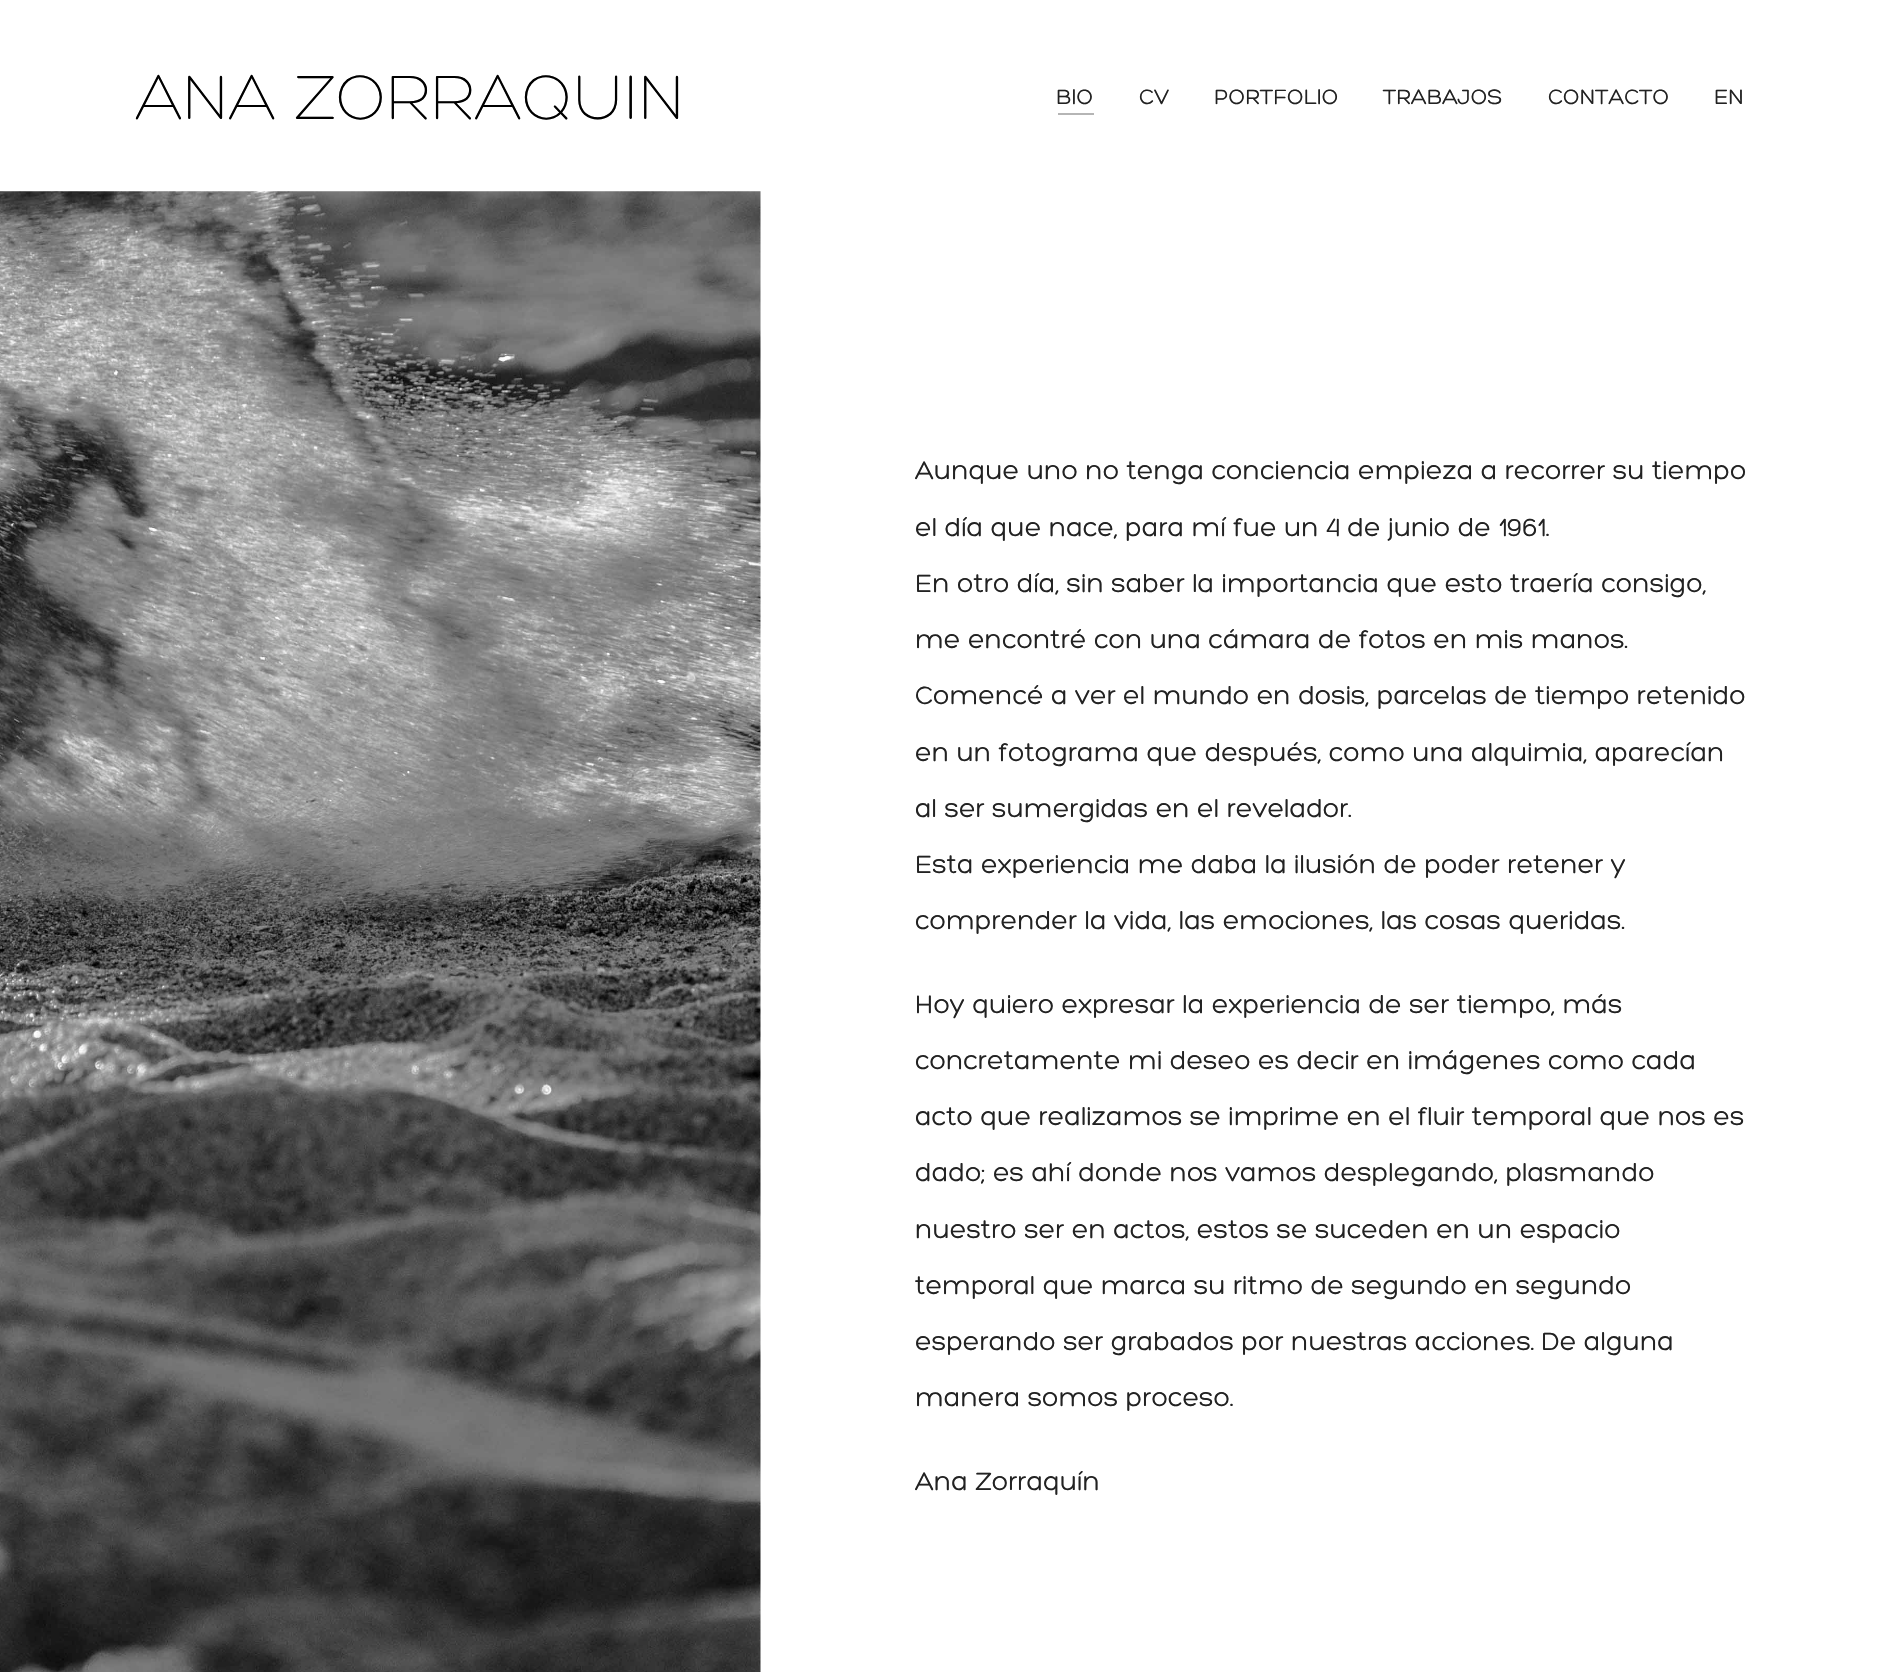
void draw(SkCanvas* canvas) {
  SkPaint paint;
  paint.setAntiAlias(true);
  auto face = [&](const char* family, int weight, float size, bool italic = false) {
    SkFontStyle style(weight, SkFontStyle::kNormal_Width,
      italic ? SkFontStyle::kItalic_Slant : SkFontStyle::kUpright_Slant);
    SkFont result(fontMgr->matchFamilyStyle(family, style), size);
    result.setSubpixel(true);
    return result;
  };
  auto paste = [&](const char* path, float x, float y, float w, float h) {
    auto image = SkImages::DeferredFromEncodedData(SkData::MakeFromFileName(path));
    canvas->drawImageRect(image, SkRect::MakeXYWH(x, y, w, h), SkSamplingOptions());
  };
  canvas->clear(0xffffffff);
  paint.setColor(0xffb5b5b5);
  canvas->drawRect(SkRect::MakeXYWH(1058, 113, 36, 2), paint);
  paste("img/1.png", 0, 191, 761, 1481);
  auto f0 = face("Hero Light", 300, 67.5f);
  paint.setColor(0xff000000);
  canvas->drawString("ANA ZORRAQUIN", 135, 119, f0, paint);
  auto f1 = face("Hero", 400, 22.5f);
  paint.setColor(0xff222222);
  {
    const struct { const char* s; float x, y; } items[] = {
      {"BIO", 1056, 104},
      {"CV", 1139, 104},
      {"PORTFOLIO", 1214, 104},
      {"TRABAJOS", 1383, 104},
      {"CONTACTO", 1548, 104},
      {"EN", 1714, 104},
    };
    for (auto [s, x, y] : items) {
      canvas->drawString(s, x, y, f1, paint);
    }
  }
  auto f2 = face("Hero", 400, 27);
  {
    const struct { const char* s; float x, y; } items[] = {
      {"Aunque uno no tenga conciencia empieza a recorrer su tiempo", 915, 479},
      {"el día que nace, para mí fue un 4 de junio de 1961.", 915, 536},
      {"En otro día, sin saber la importancia que esto traería consigo,", 915, 592},
      {"me encontré con una cámara de fotos en mis manos.", 915, 648},
      {"Comencé a ver el mundo en dosis, parcelas de tiempo retenido", 915, 704},
      {"en un fotograma que después, como una alquimia, aparecían", 915, 761},
      {"al ser sumergidas en el revelador.", 915, 817},
      {"Esta experiencia me daba la ilusión de poder retener y", 915, 873},
      {"comprender la vida, las emociones, las cosas queridas.", 915, 929},
      {"Hoy quiero expresar la experiencia de ser tiempo, más", 915, 1013},
      {"concretamente mi deseo es decir en imágenes como cada", 915, 1069},
      {"acto que realizamos se imprime en el fluir temporal que nos es", 915, 1125},
      {"dado; es ahí donde nos vamos desplegando, plasmando", 915, 1181},
      {"nuestro ser en actos, estos se suceden en un espacio", 915, 1238},
      {"temporal que marca su ritmo de segundo en segundo", 915, 1294},
      {"esperando ser grabados por nuestras acciones. De alguna", 915, 1350},
      {"manera somos proceso.", 915, 1406},
      {"Ana Zorraquín", 915, 1490},
    };
    for (auto [s, x, y] : items) {
      canvas->drawString(s, x, y, f2, paint);
    }
  }
}
